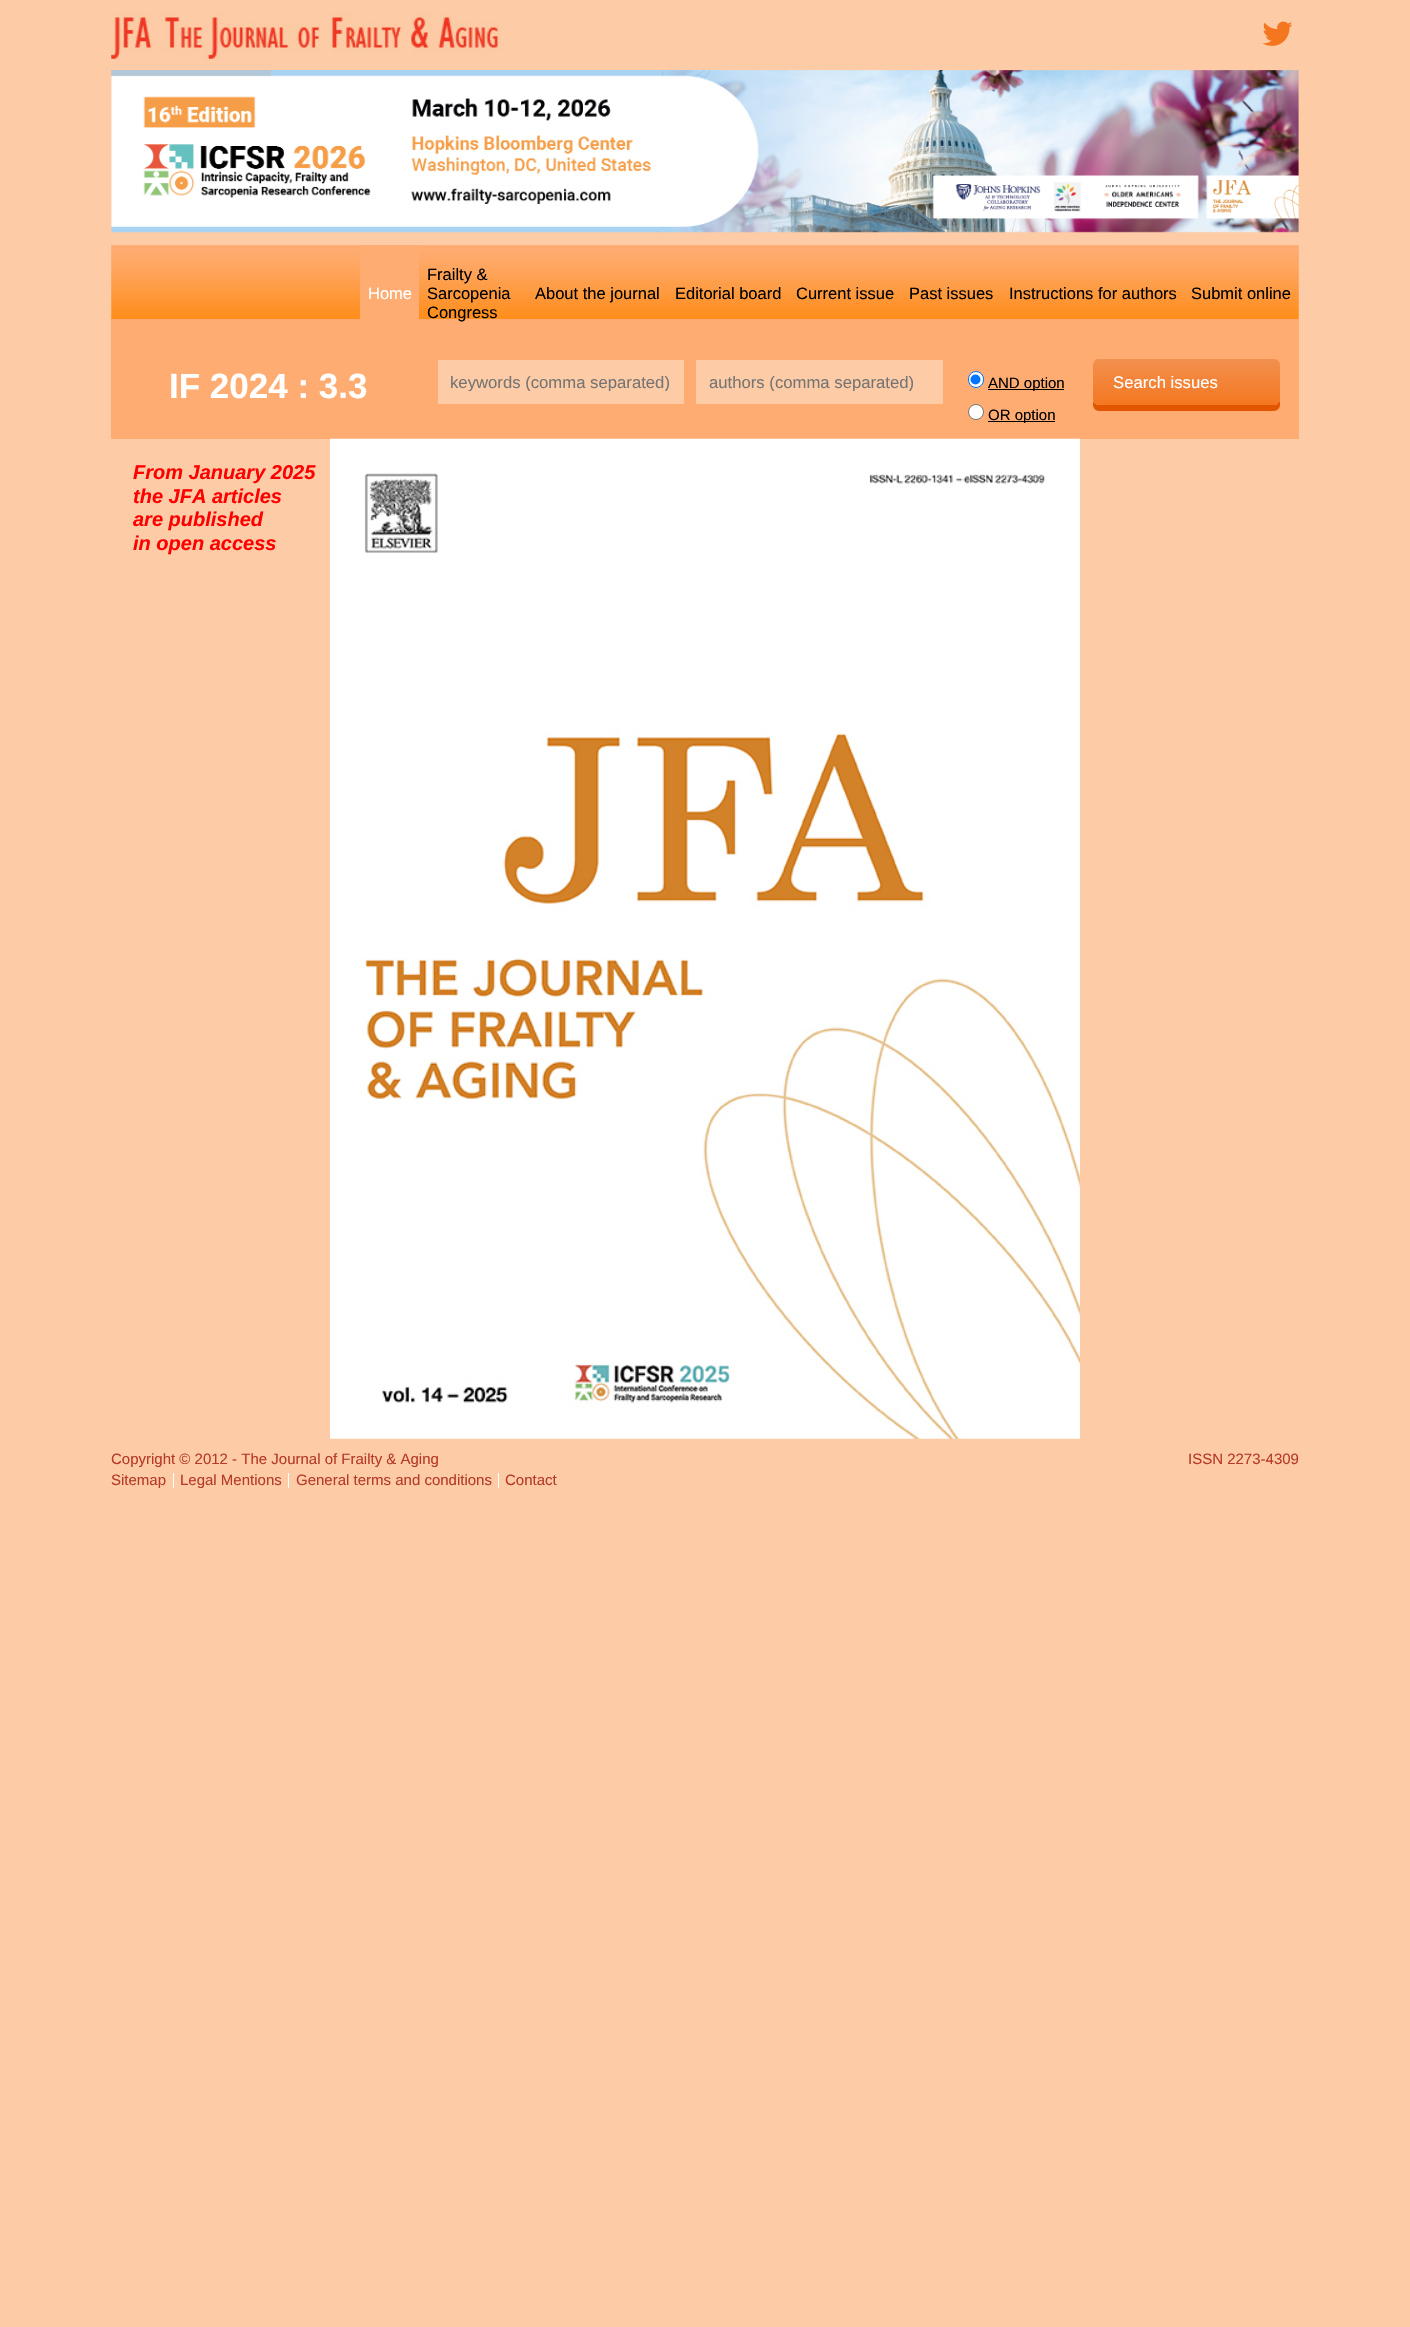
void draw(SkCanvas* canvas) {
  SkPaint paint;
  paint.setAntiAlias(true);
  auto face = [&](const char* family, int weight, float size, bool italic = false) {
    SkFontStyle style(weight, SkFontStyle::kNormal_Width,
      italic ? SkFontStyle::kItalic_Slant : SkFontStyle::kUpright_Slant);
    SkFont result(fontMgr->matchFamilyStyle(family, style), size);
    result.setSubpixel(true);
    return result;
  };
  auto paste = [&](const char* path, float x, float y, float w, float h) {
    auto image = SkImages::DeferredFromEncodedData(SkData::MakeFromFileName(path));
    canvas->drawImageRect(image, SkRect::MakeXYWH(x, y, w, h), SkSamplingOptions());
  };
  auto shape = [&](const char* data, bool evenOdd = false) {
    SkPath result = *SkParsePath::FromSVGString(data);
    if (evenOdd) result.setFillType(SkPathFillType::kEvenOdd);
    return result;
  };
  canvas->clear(0xfffdcba5);
  paste("img/1.png", 111, 12, 390, 49);
  paste("img/2.png", 1262, 21, 31, 25);
  paste("img/3.png", 111, 70, 1188, 163);
  paint.setColor(0x80bbbbbb);
  canvas->drawRect(SkRect::MakeXYWH(111, 70, 160, 6), paint);
  paste("img/4.png", 111, 245, 1188, 74);
  {
    const struct { float x, y, w, h; SkColor color; } items[] = {
      {360, 245, 59, 74, 0xfffeac72},
      {111, 319, 1188, 120, 0xfffeac72},
      {438, 360, 246, 44, 0xfffdcba5},
      {696, 360, 247, 44, 0xfffdcba5},
    };
    for (auto [x, y, w, h, color] : items) {
      paint.setColor(color);
      canvas->drawRect(SkRect::MakeXYWH(x, y, w, h), paint);
    }
  }
  paint.setColor(0xffffffff);
  canvas->drawRoundRect(SkRect::MakeXYWH(968.5f, 371.5f, 15, 16), 7.5f, 7.5f, paint);
  paint.setStroke(true);
  paint.setStrokeWidth(1);
  paint.setColor(0xff0075ff);
  canvas->drawRoundRect(SkRect::MakeXYWH(968.5f, 371.5f, 15, 16), 7.5f, 7.5f, paint);
  paint.setStroke(false);
  canvas->drawCircle(975.5f, 379.5f, 5, paint);
  paint.setColor(0xff000000);
  canvas->drawRect(SkRect::MakeXYWH(988, 389, 76, 1), paint);
  paint.setColor(0xffffffff);
  canvas->drawCircle(976, 412, 7.5f, paint);
  paint.setStroke(true);
  paint.setColor(0xff767676);
  canvas->drawCircle(976, 412, 7.5f, paint);
  paint.setStroke(false);
  paint.setColor(0xff000000);
  canvas->drawRect(SkRect::MakeXYWH(988, 421, 67, 1), paint);
  paint.setColor(0xffe25600);
  canvas->drawPath(shape("M1093 401V405C1093 408 1096 411 1099 411H1274C1277 411 1280 408 1280 405V399C1280 402 1277 405 1274 405H1099C1096 405 1094 403 1093 401Z"), paint);
  {
    const SkColor colors[] = {0xfff47720, 0xfff2904f};
    const float stops[] = {0, 1};
    const SkPoint ends[] = {{1093, 405}, {1093, 359}};
    paint.setShader(SkGradientShader::MakeLinear(ends, colors, stops, 2, SkTileMode::kClamp));
    paint.setAlpha(255);
  }
  canvas->drawRoundRect(SkRect::MakeXYWH(1093, 359, 187, 46), 6, 6, paint);
  paint.setShader(nullptr);
  paint.setColor(0xfff2904f);
  canvas->drawPath(shape("M1099 360H1274C1277 360 1280 363 1280 366V365C1280 362 1277 359 1274 359H1099C1097 359 1095 360 1094 362C1095 361 1097 360 1099 360Z"), paint);
  paste("img/5.png", 330, 438, 750, 1001);
  {
    const struct { float x, y, w, h; SkColor color; } items[] = {
      {173, 1473, 1, 15, 0xffffffff},
      {288, 1473, 1, 15, 0xffffffff},
      {498, 1473, 1, 15, 0xffffffff},
    };
    for (auto [x, y, w, h, color] : items) {
      paint.setColor(color);
      canvas->drawRect(SkRect::MakeXYWH(x, y, w, h), paint);
    }
  }
  auto f0 = face("Liberation Sans", 400, 16.5f);
  canvas->drawString("Home", 368, 299, f0, paint);
  paint.setColor(0xff000000);
  {
    const struct { const char* s; float x, y; } items[] = {
      {"Frailty &", 427, 280},
      {"Sarcopenia", 427, 299},
      {"Congress", 427, 318},
      {"About the journal", 535, 299},
      {"Editorial board", 675, 299},
      {"Current issue", 796, 299},
      {"Past issues", 909, 299},
      {"Instructions for authors", 1009, 299},
      {"Submit online", 1191, 299},
    };
    for (auto [s, x, y] : items) {
      canvas->drawString(s, x, y, f0, paint);
    }
  }
  auto f1 = face("Liberation Sans", 700, 35);
  paint.setColor(0xffffffff);
  canvas->drawString("IF 2024 : 3.3", 169, 398, f1, paint);
  canvas->save();
  canvas->clipRect(SkRect::MakeXYWH(450, 373, 221, 18));
  auto f2 = face("Liberation Sans", 400, 16.7f);
  paint.setColor(0xff757575);
  canvas->drawString("keywords (comma separated)", 450, 388, f2, paint);
  canvas->restore();
  canvas->save();
  canvas->clipRect(SkRect::MakeXYWH(709, 373, 221, 18));
  canvas->drawString("authors (comma separated)", 709, 388, f2, paint);
  canvas->restore();
  auto f3 = face("Liberation Sans", 400, 15);
  paint.setColor(0xff000000);
  canvas->drawString("AND option", 988, 388, f3, paint);
  canvas->drawString("OR option", 988, 420, f3, paint);
  paint.setColor(0xffffffff);
  canvas->drawString("Search issues", 1113, 388, f2, paint);
  auto f4 = face("Liberation Sans", 700, 20, true);
  paint.setColor(0xffff0000);
  {
    const struct { const char* s; float x, y; } items[] = {
      {"From January 2025", 133, 479},
      {"the JFA articles", 133, 503},
      {"are published", 133, 526},
      {"in open access", 133, 550},
    };
    for (auto [s, x, y] : items) {
      canvas->drawString(s, x, y, f4, paint);
    }
  }
  paint.setColor(0xffb53a28);
  {
    const struct { const char* s; float x, y; } items[] = {
      {"Copyright © 2012 - The Journal of Frailty & Aging", 111, 1464},
      {"ISSN 2273-4309", 1188, 1464},
      {"Sitemap", 111, 1485},
      {"Legal Mentions", 180, 1485},
      {"General terms and conditions", 296, 1485},
      {"Contact", 505, 1485},
    };
    for (auto [s, x, y] : items) {
      canvas->drawString(s, x, y, f3, paint);
    }
  }
}
